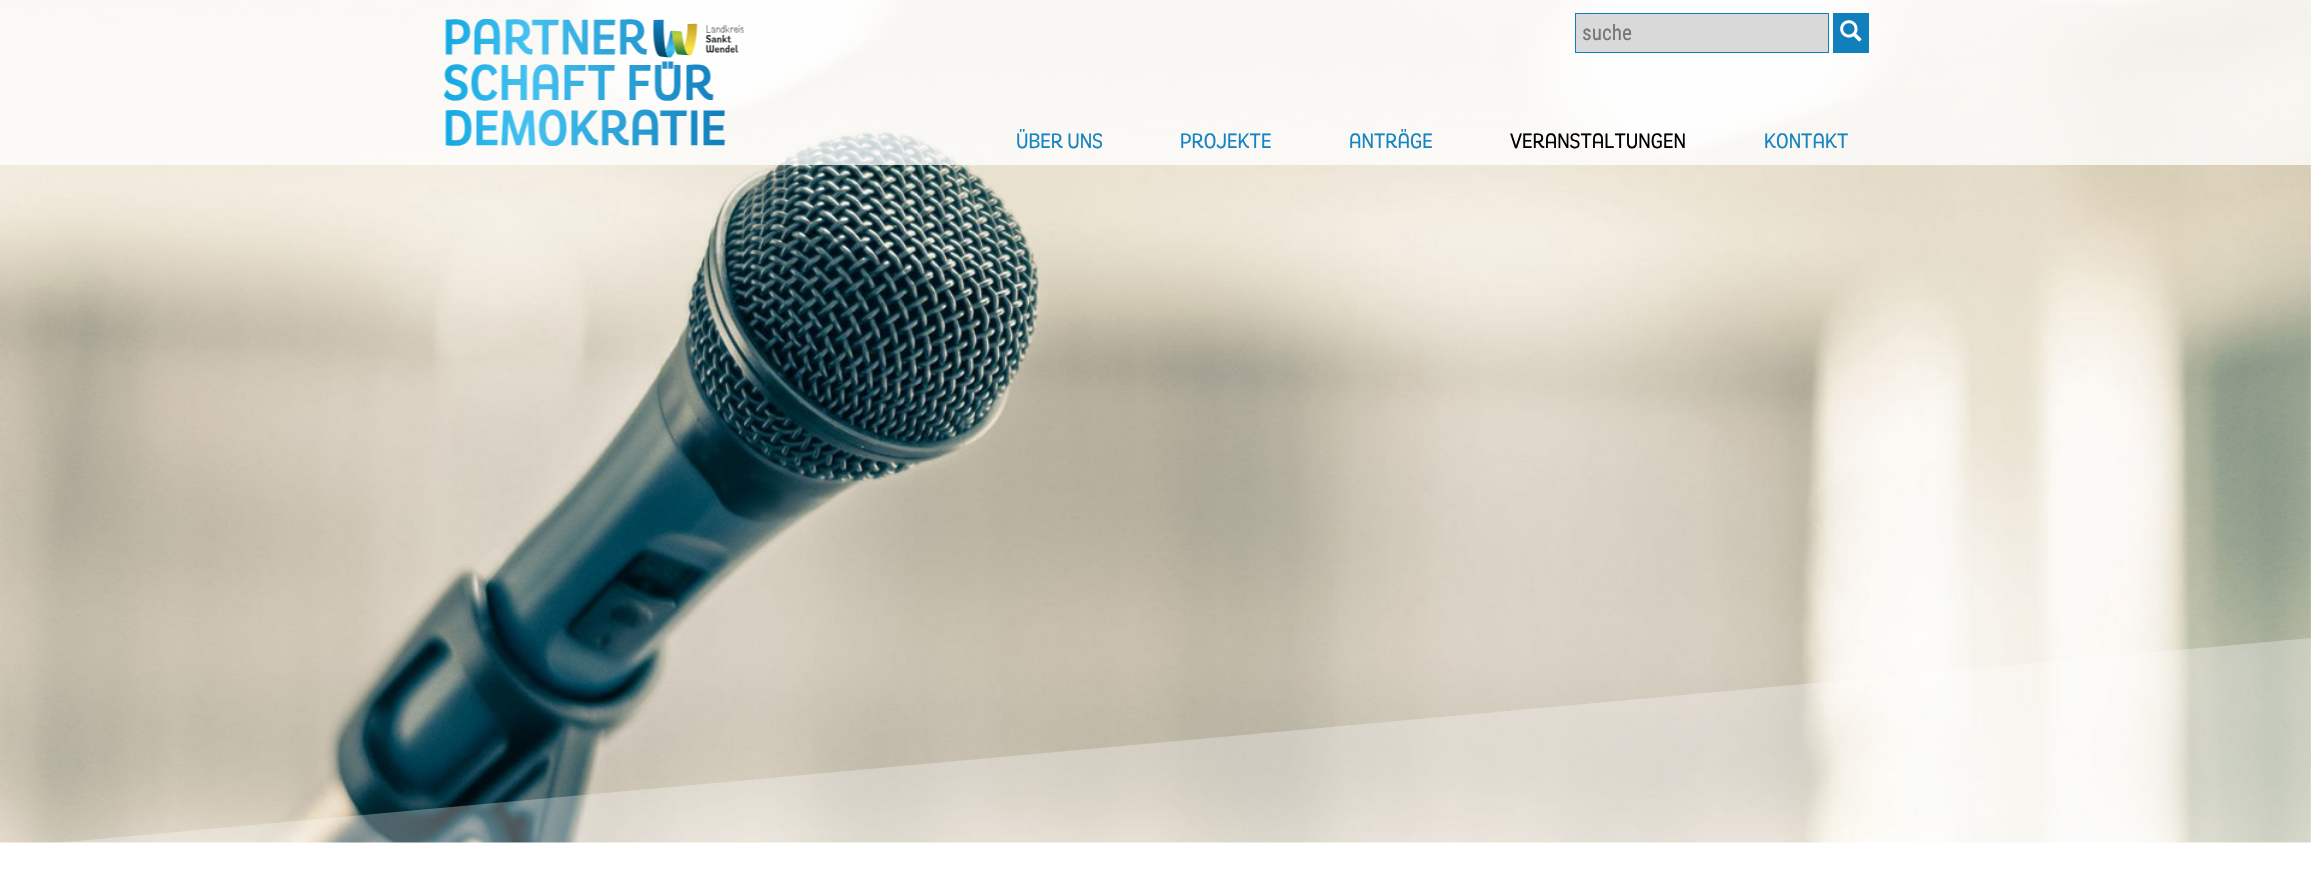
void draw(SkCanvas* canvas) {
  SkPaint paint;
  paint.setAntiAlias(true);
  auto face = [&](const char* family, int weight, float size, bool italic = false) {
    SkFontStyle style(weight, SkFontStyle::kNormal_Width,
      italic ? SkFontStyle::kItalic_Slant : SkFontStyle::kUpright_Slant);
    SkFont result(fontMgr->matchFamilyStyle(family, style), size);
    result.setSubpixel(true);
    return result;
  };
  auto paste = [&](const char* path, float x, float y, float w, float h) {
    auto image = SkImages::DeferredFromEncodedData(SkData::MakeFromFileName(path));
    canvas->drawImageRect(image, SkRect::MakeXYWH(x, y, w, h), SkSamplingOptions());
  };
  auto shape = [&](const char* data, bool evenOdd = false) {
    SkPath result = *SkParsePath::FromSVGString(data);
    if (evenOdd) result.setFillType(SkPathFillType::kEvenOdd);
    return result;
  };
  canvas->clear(0xffffffff);
  paste("img/1.png", 0, 0, 2311, 843);
  paint.setColor(0x4dfefefe);
  canvas->drawPath(shape("M0 848H2311V638Z"), paint);
  paint.setColor(0xccfefefe);
  canvas->drawRect(SkRect::MakeXYWH(0, 0, 2311, 165), paint);
  paint.setColor(0xffd9d9d9);
  canvas->drawRect(SkRect::MakeXYWH(1575.5f, 13.5f, 253, 39), paint);
  paint.setStroke(true);
  paint.setStrokeWidth(1);
  paint.setColor(0xff127fbd);
  canvas->drawRect(SkRect::MakeXYWH(1575.5f, 13.5f, 253, 39), paint);
  paint.setStroke(false);
  canvas->drawRect(SkRect::MakeXYWH(1833, 13, 36, 40), paint);
  paste("img/2.png", 1840, 20, 22, 22);
  paste("img/3.png", 443, 19, 301, 127);
  auto f0 = face("Roboto Condensed", 400, 21.25f);
  paint.setColor(0xff757575);
  canvas->drawString("suche", 1582, 40, f0, paint);
  auto f1 = face("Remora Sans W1", 500, 21.25f);
  paint.setColor(0xff1684c1);
  {
    const struct { const char* s; float x, y; } items[] = {
      {"ÜBER UNS", 1016, 148},
      {"PROJEKTE", 1180, 148},
      {"ANTRÄGE", 1349, 148},
    };
    for (auto [s, x, y] : items) {
      canvas->drawString(s, x, y, f1, paint);
    }
  }
  paint.setColor(0xff000000);
  canvas->drawString("VERANSTALTUNGEN", 1510, 148, f1, paint);
  paint.setColor(0xff1684c1);
  canvas->drawString("KONTAKT", 1764, 148, f1, paint);
}
